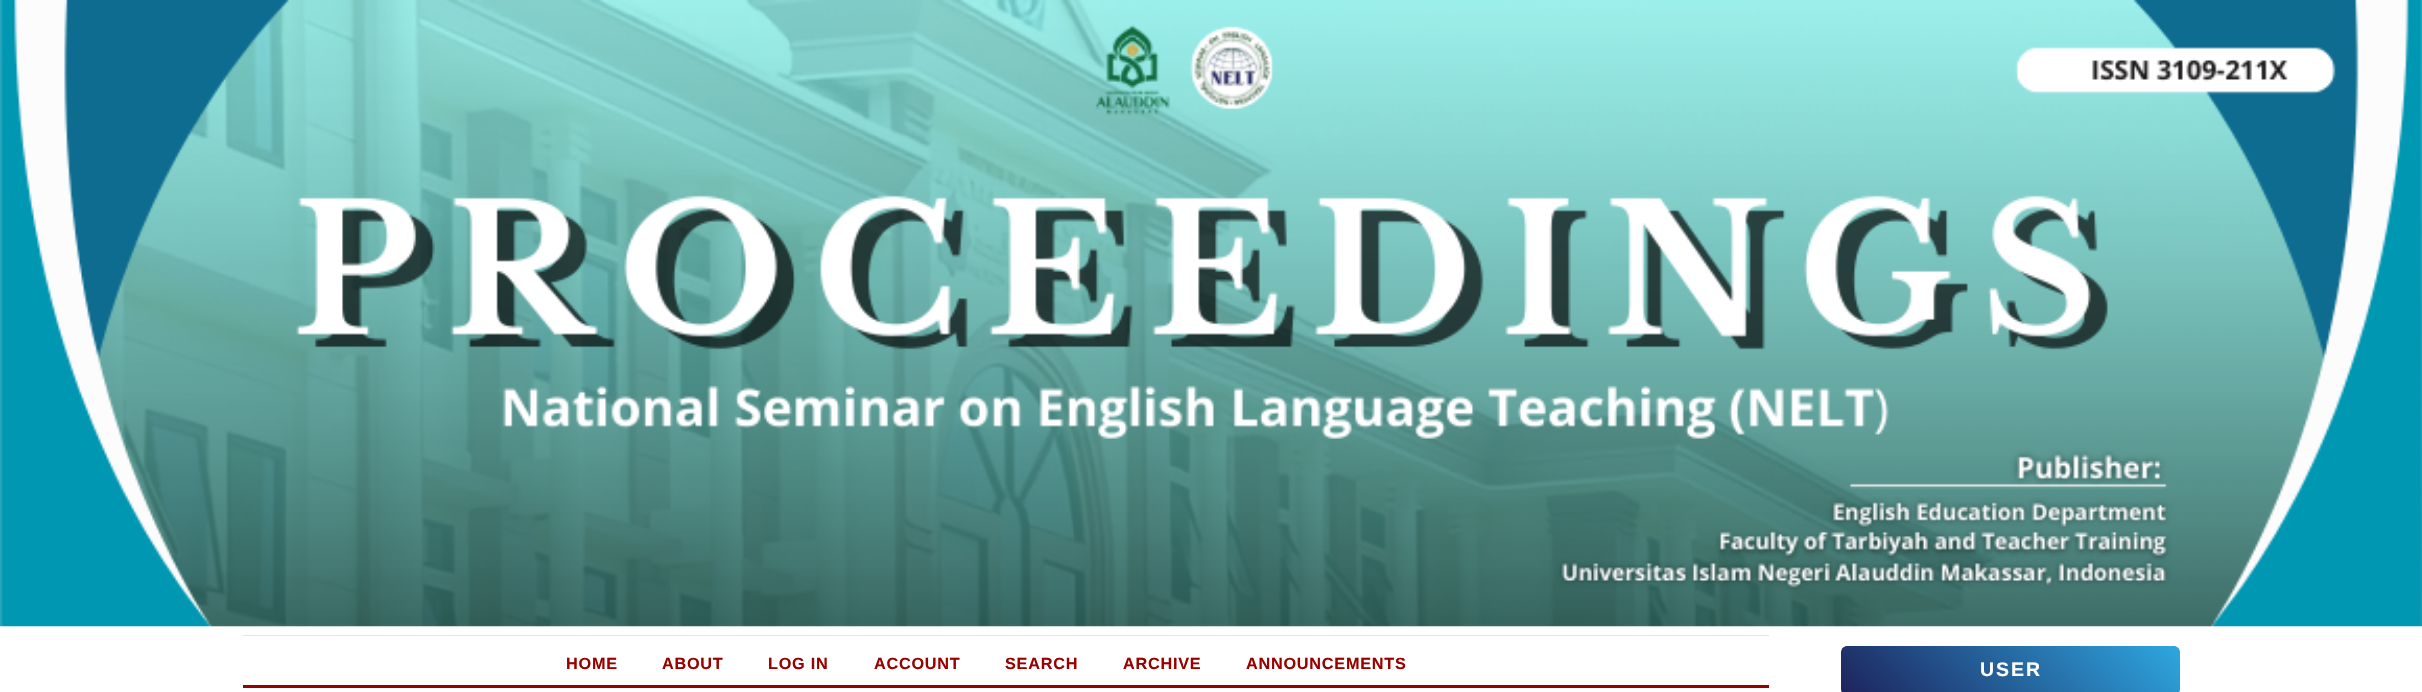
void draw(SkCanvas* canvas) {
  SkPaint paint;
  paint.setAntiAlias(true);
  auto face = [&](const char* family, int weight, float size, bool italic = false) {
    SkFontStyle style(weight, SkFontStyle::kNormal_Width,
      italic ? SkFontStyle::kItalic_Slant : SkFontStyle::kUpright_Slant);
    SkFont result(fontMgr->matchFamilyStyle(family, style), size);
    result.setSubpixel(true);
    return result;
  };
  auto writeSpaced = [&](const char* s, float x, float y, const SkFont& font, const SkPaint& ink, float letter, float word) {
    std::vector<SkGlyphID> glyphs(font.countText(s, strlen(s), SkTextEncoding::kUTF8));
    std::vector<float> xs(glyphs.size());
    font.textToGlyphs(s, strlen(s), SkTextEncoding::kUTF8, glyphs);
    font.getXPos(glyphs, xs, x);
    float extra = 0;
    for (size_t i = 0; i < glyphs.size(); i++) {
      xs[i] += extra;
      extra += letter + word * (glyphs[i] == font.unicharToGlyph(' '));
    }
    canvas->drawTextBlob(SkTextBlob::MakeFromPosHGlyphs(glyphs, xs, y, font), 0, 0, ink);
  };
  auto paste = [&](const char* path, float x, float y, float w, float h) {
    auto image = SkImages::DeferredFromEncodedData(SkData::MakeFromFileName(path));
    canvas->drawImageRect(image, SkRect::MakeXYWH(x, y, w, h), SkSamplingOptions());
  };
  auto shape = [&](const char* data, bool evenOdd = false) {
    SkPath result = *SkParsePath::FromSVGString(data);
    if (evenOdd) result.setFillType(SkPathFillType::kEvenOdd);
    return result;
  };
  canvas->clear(0xffffffff);
  paste("img/1.png", 0, 0, 2422, 627);
  paint.setColor(0xffffff00);
  canvas->drawRect(SkRect::MakeXYWH(243, 635, 1526, 1), paint);
  paint.setColor(0xff990000);
  canvas->drawRect(SkRect::MakeXYWH(243, 685, 1526, 3), paint);
  canvas->save();
  canvas->clipPath(shape("M1847 646H2174C2177.5 646 2180 648.5 2180 652V689C2180 692.5 2177.5 695 2174 695H1847C1843.5 695 1841 692.5 1841 689V652C1841 648.5 1843.5 646 1847 646Z"), true);
  {
    const SkColor colors[] = {0xff1d235c, 0xff2ea7e0};
    const float stops[] = {0, 1};
    const SkPoint ends[] = {{1914, 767}, {2107, 573}};
    paint.setShader(SkGradientShader::MakeLinear(ends, colors, stops, 2, SkTileMode::kClamp));
    paint.setAlpha(255);
  }
  canvas->drawPath(shape("M1847 646H2174C2177.5 646 2180 648.5 2180 652V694H1841V652C1841 648.5 1843.5 646 1847 646Z"), paint);
  canvas->restore();
  auto f0 = face("Liberation Sans", 700, 16.25f);
  paint.setShader(nullptr);
  paint.setColor(0xff990000);
  {
    const struct { const char* s; float x, y; } items[] = {
      {"HOME", 566, 669},
      {"ABOUT", 662, 669},
      {"LOG IN", 768, 669},
      {"ACCOUNT", 874, 669},
      {"SEARCH", 1005, 669},
      {"ARCHIVE", 1123, 669},
      {"ANNOUNCEMENTS", 1246, 669},
    };
    for (auto [s, x, y] : items) {
      writeSpaced(s, x, y, f0, paint, 0.75f, 0);
    }
  }
  auto f1 = face("Liberation Sans", 700, 19.5f);
  paint.setColor(0xffffffff);
  writeSpaced("USER", 1980, 676, f1, paint, 2, 0);
}
